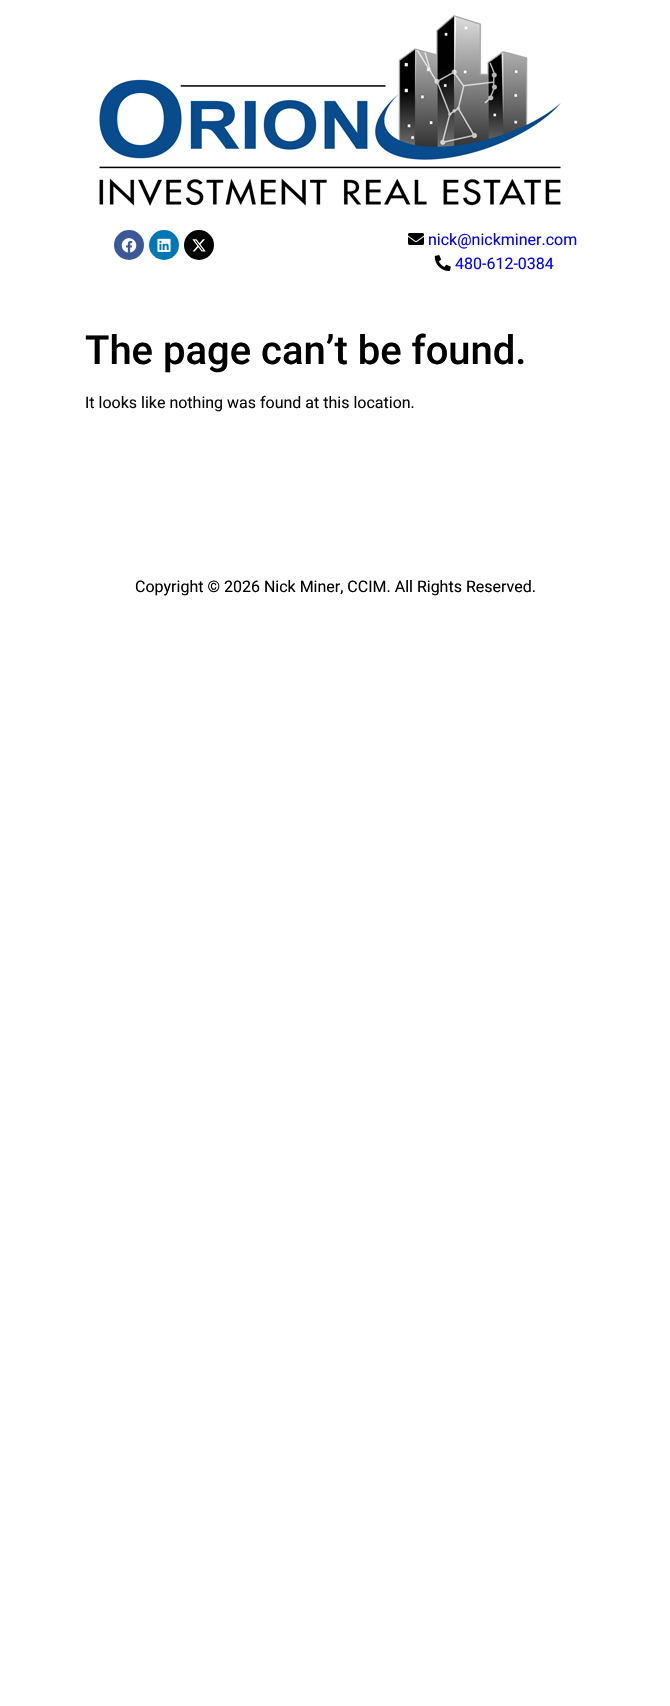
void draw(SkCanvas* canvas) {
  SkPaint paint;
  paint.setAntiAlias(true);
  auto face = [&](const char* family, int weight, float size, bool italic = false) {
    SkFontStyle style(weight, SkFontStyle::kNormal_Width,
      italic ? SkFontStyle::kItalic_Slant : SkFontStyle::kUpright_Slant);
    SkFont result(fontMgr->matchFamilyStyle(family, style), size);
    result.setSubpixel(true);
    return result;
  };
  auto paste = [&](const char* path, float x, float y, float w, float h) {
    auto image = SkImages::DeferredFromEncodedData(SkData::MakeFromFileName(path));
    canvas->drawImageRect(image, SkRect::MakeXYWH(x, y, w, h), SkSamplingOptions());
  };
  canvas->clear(0xffffffff);
  paste("img/1.png", 99, 15, 462, 191);
  paint.setColor(0xff3b5998);
  canvas->drawCircle(129, 245, 15, paint);
  paste("img/2.png", 121, 238, 16, 15);
  paint.setColor(0xff0077b5);
  canvas->drawCircle(164, 245, 15, paint);
  paste("img/3.png", 157, 238, 14, 14);
  paint.setColor(0xff000000);
  canvas->drawCircle(199, 245, 15, paint);
  paste("img/4.png", 192, 239, 14, 13);
  paste("img/5.png", 408, 233, 16, 12);
  paste("img/6.png", 434, 255, 17, 17);
  auto f0 = face("Roboto", 400, 16);
  paint.setColor(0xff0000ff);
  canvas->drawString("nick@nickminer.com", 428, 245, f0, paint);
  canvas->drawString("480-612-0384", 455, 269, f0, paint);
  auto f1 = face("Roboto", 500, 40);
  paint.setColor(0xff000000);
  canvas->drawString("The page can’t be found.", 85, 364, f1, paint);
  paint.setColor(0xff080808);
  canvas->drawString("It looks like nothing was found at this location.", 85, 408, f0, paint);
  paint.setColor(0xff000000);
  canvas->drawString("Copyright © 2026 Nick Miner, CCIM. All Rights Reserved.", 135, 592, f0, paint);
}
